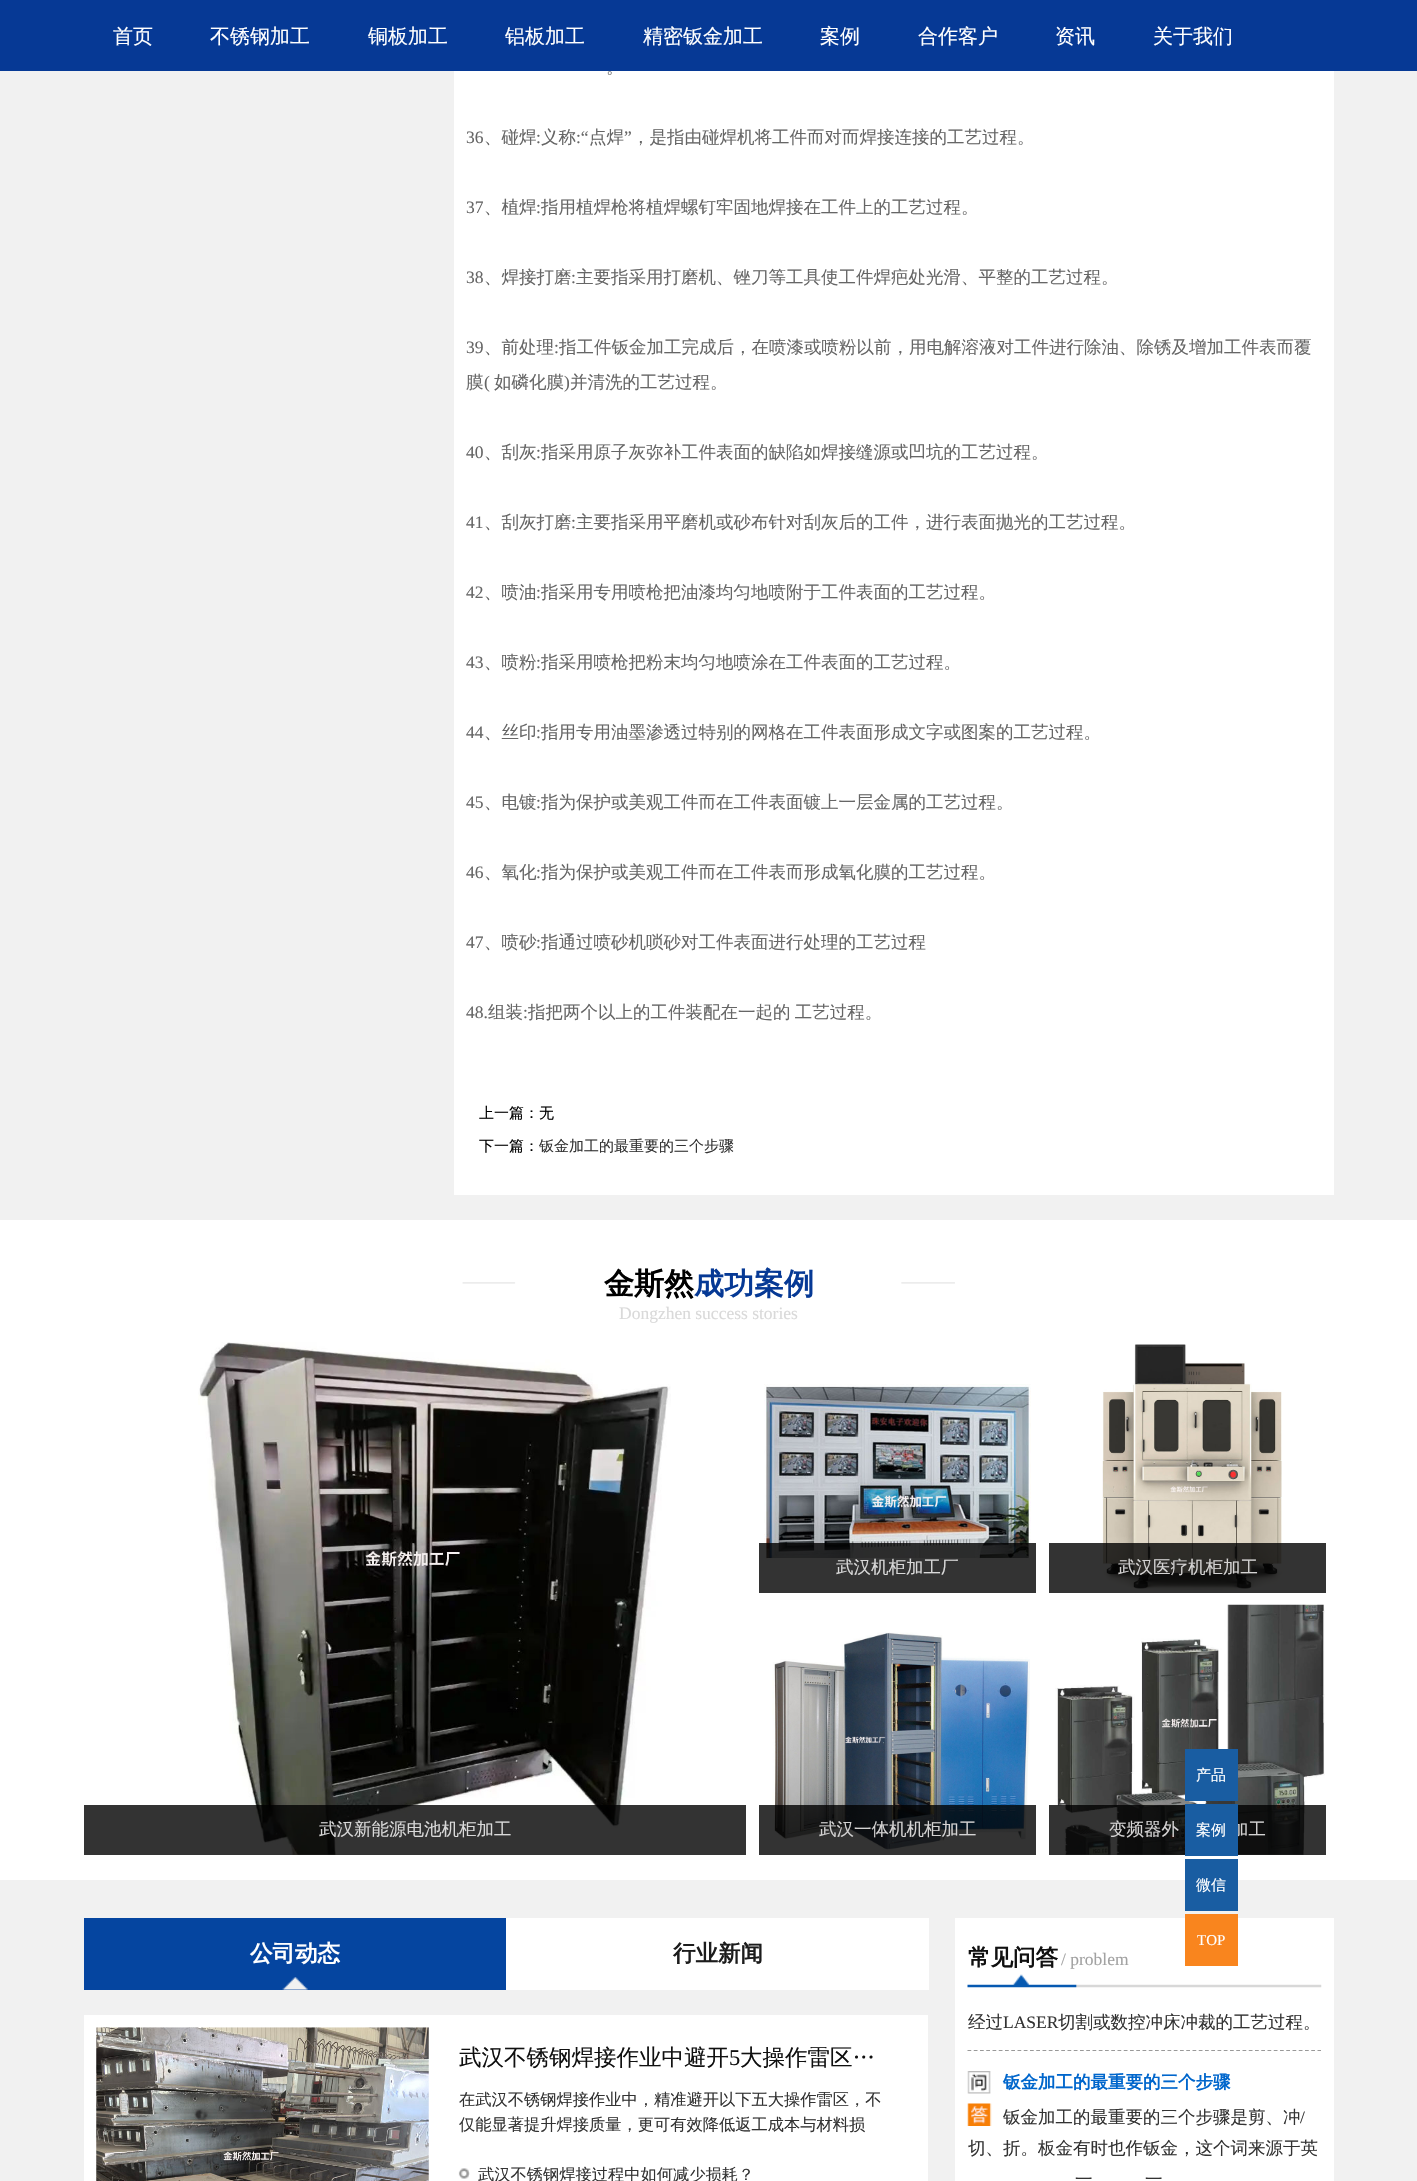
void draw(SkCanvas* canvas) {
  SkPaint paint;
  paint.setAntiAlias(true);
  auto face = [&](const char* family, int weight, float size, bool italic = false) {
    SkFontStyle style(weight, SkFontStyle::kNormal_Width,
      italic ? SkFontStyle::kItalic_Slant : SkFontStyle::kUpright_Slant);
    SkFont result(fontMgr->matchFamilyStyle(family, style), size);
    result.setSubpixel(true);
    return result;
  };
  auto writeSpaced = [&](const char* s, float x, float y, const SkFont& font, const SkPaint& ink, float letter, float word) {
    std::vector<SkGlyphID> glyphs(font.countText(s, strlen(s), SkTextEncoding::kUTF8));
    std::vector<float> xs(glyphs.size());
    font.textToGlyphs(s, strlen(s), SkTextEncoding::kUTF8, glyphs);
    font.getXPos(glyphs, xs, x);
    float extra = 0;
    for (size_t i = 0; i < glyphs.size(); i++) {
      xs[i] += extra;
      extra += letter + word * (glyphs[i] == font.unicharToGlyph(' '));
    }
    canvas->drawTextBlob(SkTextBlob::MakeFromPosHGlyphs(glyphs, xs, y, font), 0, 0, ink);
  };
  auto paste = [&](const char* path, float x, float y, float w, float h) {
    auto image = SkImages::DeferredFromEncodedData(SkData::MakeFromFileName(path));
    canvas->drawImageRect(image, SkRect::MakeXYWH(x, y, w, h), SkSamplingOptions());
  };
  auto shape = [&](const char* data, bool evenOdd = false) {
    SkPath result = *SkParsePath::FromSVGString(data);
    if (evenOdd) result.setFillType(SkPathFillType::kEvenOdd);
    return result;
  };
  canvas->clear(0xffffffff);
  {
    const struct { float x, y, w, h; SkColor color; } items[] = {
      {0, 0, 1417, 71, 0xff063995},
      {0, 71, 1417, 1149, 0xfff1f1f1},
      {454, 71, 880, 1124, 0xffffffff},
    };
    for (auto [x, y, w, h, color] : items) {
      paint.setColor(color);
      canvas->drawRect(SkRect::MakeXYWH(x, y, w, h), paint);
    }
  }
  paste("img/1.png", 462, 1282, 493, 2);
  paste("img/2.png", 198, 1342, 473, 513);
  paint.setColor(0xcc000000);
  canvas->drawRect(SkRect::MakeXYWH(84, 1805, 662, 50), paint);
  paste("img/3.png", 764, 1384, 267, 178);
  canvas->drawRect(SkRect::MakeXYWH(759, 1543, 277, 50), paint);
  paste("img/4.png", 1102, 1344, 182, 248);
  canvas->drawRect(SkRect::MakeXYWH(1049, 1543, 277, 50), paint);
  paste("img/5.png", 772, 1632, 258, 219);
  canvas->drawRect(SkRect::MakeXYWH(759, 1805, 277, 50), paint);
  paste("img/6.png", 1055, 1604, 270, 251);
  {
    const struct { float x, y, w, h; SkColor color; } items[] = {
      {1049, 1805, 277, 50, 0xcc000000},
      {1185, 1749, 53, 52, 0xff195da2},
      {0, 1880, 1417, 301, 0xfff1f1f1},
      {1185, 1859, 53, 52, 0xff195da2},
      {955, 1918, 379, 263, 0xffffffff},
      {1185, 1914, 53, 52, 0xfff9851e},
      {84, 1918, 422, 72, 0xff0545a0},
    };
    for (auto [x, y, w, h, color] : items) {
      paint.setColor(color);
      canvas->drawRect(SkRect::MakeXYWH(x, y, w, h), paint);
    }
  }
  paste("img/7.png", 282, 1977, 26, 13);
  paint.setColor(0xffffffff);
  canvas->drawRect(SkRect::MakeXYWH(506, 1918, 423, 72), paint);
  canvas->drawRect(SkRect::MakeXYWH(84, 2015, 844, 166), paint);
  paste("img/8.png", 96, 2027, 333, 154);
  paste("img/9.png", 458, 2168, 12, 11);
  paste("img/10.png", 967, 1974, 355, 14);
  paint.setStroke(true);
  paint.setStrokeWidth(1.2f);
  paint.setColor(0xff999999);
  paint.setPathEffect(SkDashPathEffect::Make({{3.75f, 2.5f}}, 0));
  canvas->drawPath(shape("M967.5 2050.5H1321"), paint);
  paint.setPathEffect(nullptr);
  paste("img/11.png", 967, 2071, 24, 23);
  paste("img/12.png", 967, 2103, 25, 23);
  auto f0 = face("WenQuanYi Zen Hei", 500, 20);
  paint.setStroke(false);
  paint.setColor(0xffffffff);
  {
    const struct { const char* s; float x, y; } items[] = {
      {"首页", 113, 43},
      {"不锈钢加工", 210, 43},
      {"铜板加工", 368, 43},
      {"铝板加工", 505, 43},
      {"精密钣金加工", 643, 43},
      {"案例", 820, 43},
      {"合作客户", 918, 43},
      {"资讯", 1055, 43},
      {"关于我们", 1153, 43},
    };
    for (auto [s, x, y] : items) {
      canvas->drawString(s, x, y, f0, paint);
    }
  }
  auto f1 = face("WenQuanYi Zen Hei", 500, 17.5f);
  paint.setColor(0xff666666);
  canvas->drawString("。", 606, 73, f1, paint);
  auto f2 = face("Liberation Serif", 400, 17.5f);
  canvas->drawString("36", 466, 143, f2, paint);
  canvas->drawString("、碰焊", 484, 143, f1, paint);
  canvas->drawString("义称", 541, 143, f1, paint);
  canvas->drawString(":“", 576, 143, f2, paint);
  canvas->drawString("点焊", 589, 143, f1, paint);
  canvas->drawString("”", 624, 143, f2, paint);
  canvas->drawString("，是指由碰焊机将工件而对而焊接连接的工艺过程。", 632, 143, f1, paint);
  canvas->drawString(":", 536, 143, f2, paint);
  canvas->drawString("37", 466, 213, f2, paint);
  canvas->drawString("、植焊", 484, 213, f1, paint);
  canvas->drawString(":", 536, 213, f2, paint);
  canvas->drawString("指用植焊枪将植焊螺钉牢固地焊接在工件上的工艺过程。", 541, 213, f1, paint);
  canvas->drawString("38", 466, 283, f2, paint);
  canvas->drawString("、焊接打磨", 484, 283, f1, paint);
  canvas->drawString(":", 571, 283, f2, paint);
  canvas->drawString("主要指采用打磨机、锉刀等工具使工件焊疤处光滑、平整的工艺过程。", 576, 283, f1, paint);
  canvas->drawString("39", 466, 353, f2, paint);
  canvas->drawString("、前处理", 484, 353, f1, paint);
  canvas->drawString(":", 554, 353, f2, paint);
  canvas->drawString("指工件钣金加工完成后，在喷漆或喷粉以前，用电解溶液对工件进行除油、除锈及增加工件表而覆", 559, 353, f1, paint);
  canvas->drawString("膜", 466, 388, f1, paint);
  canvas->drawString("(", 484, 388, f2, paint);
  canvas->drawString("如磷化膜", 494, 388, f1, paint);
  canvas->drawString(")", 564, 388, f2, paint);
  canvas->drawString("并清洗的工艺过程。", 570, 388, f1, paint);
  canvas->drawString("40", 466, 458, f2, paint);
  canvas->drawString("、刮灰", 484, 458, f1, paint);
  canvas->drawString(":", 536, 458, f2, paint);
  canvas->drawString("指采用原子灰弥补工件表面的缺陷如焊接缝源或凹坑的工艺过程。", 541, 458, f1, paint);
  canvas->drawString("41", 466, 528, f2, paint);
  canvas->drawString("、刮灰打磨", 484, 528, f1, paint);
  canvas->drawString(":", 571, 528, f2, paint);
  canvas->drawString("主要指采用平磨机或砂布针对刮灰后的工件，进行表面抛光的工艺过程。", 576, 528, f1, paint);
  canvas->drawString("42", 466, 598, f2, paint);
  canvas->drawString("、喷油", 484, 598, f1, paint);
  canvas->drawString(":", 536, 598, f2, paint);
  canvas->drawString("指采用专用喷枪把油漆均匀地喷附于工件表面的工艺过程。", 541, 598, f1, paint);
  canvas->drawString("43", 466, 668, f2, paint);
  canvas->drawString("、喷粉", 484, 668, f1, paint);
  canvas->drawString(":", 536, 668, f2, paint);
  canvas->drawString("指采用喷枪把粉末均匀地喷涂在工件表面的工艺过程。", 541, 668, f1, paint);
  canvas->drawString("44", 466, 738, f2, paint);
  canvas->drawString("、丝印", 484, 738, f1, paint);
  canvas->drawString(":", 536, 738, f2, paint);
  canvas->drawString("指用专用油墨渗透过特别的网格在工件表面形成文字或图案的工艺过程。", 541, 738, f1, paint);
  canvas->drawString("45", 466, 808, f2, paint);
  canvas->drawString("、电镀", 484, 808, f1, paint);
  canvas->drawString(":", 536, 808, f2, paint);
  canvas->drawString("指为保护或美观工件而在工件表面镀上一层金属的工艺过程。", 541, 808, f1, paint);
  canvas->drawString("46", 466, 878, f2, paint);
  canvas->drawString("、氧化", 484, 878, f1, paint);
  canvas->drawString(":", 536, 878, f2, paint);
  canvas->drawString("指为保护或美观工件而在工件表而形成氧化膜的工艺过程。", 541, 878, f1, paint);
  canvas->drawString("47", 466, 948, f2, paint);
  canvas->drawString("、喷砂", 484, 948, f1, paint);
  canvas->drawString(":", 536, 948, f2, paint);
  canvas->drawString("指通过喷砂机唢砂对工件表面进行处理的工艺过程", 541, 948, f1, paint);
  canvas->drawString("48.", 466, 1018, f2, paint);
  canvas->drawString("组装", 488, 1018, f1, paint);
  canvas->drawString(":", 523, 1018, f2, paint);
  writeSpaced("指把两个以上的工件装配在一起的 工艺过程。", 528, 1018, f1, paint, 0, -1);
  auto f3 = face("WenQuanYi Zen Hei", 500, 15);
  paint.setColor(0xff000000);
  canvas->drawString("上一篇：无", 479, 1118, f3, paint);
  canvas->drawString("下一篇：", 479, 1151, f3, paint);
  paint.setColor(0xff333333);
  canvas->drawString("钣金加工的最重要的三个步骤", 539, 1151, f3, paint);
  auto f4 = face("WenQuanYi Zen Hei", 700, 30);
  paint.setColor(0xff000000);
  canvas->drawString("金斯然", 604, 1294, f4, paint);
  paint.setColor(0xff063995);
  canvas->drawString("成功案例", 694, 1294, f4, paint);
  paint.setColor(0xffd9d9d9);
  canvas->drawString("Dongzhen success stories", 619, 1319, f2, paint);
  canvas->drawString("武汉新能源电池机柜加工", 319, 1835, f1, paint);
  canvas->drawString("武汉机柜加工厂", 836, 1573, f1, paint);
  paint.setColor(0xffd4d3d3);
  {
    const struct { const char* s; float x, y; } items[] = {
      {"武汉医疗机柜加工", 1118, 1573},
      {"武汉一体机机柜加工", 819, 1835},
      {"变频器外", 1109, 1835},
      {"加工", 1231, 1835},
    };
    for (auto [s, x, y] : items) {
      canvas->drawString(s, x, y, f1, paint);
    }
  }
  paint.setColor(0xffffffff);
  canvas->drawString("产品", 1196, 1780, f3, paint);
  paint.setColor(0xff195da2);
  canvas->drawRect(SkRect::MakeXYWH(1185, 1804, 53, 52), paint);
  paint.setColor(0xffffffff);
  canvas->drawString("案例", 1196, 1835, f3, paint);
  canvas->drawString("微信", 1196, 1890, f3, paint);
  auto f5 = face("Liberation Serif", 400, 15);
  canvas->drawString("TOP", 1197, 1945, f5, paint);
  auto f6 = face("WenQuanYi Zen Hei", 700, 22.5f);
  canvas->drawString("公司动态", 250, 1961, f6, paint);
  paint.setColor(0xff1c1c1c);
  canvas->drawString("行业新闻", 673, 1961, f6, paint);
  auto f7 = face("WenQuanYi Zen Hei", 500, 22.5f);
  paint.setColor(0xff101010);
  canvas->drawString("武汉不锈钢焊接作业中避开", 459, 2065, f7, paint);
  auto f8 = face("Liberation Serif", 400, 22.5f);
  canvas->drawString("5", 729, 2065, f8, paint);
  canvas->drawString("大操作雷区…", 740, 2065, f7, paint);
  auto f9 = face("WenQuanYi Zen Hei", 500, 16.25f);
  paint.setColor(0xff333333);
  {
    const struct { const char* s; float x, y; } items[] = {
      {"在武汉不锈钢焊接作业中，精准避开以下五大操作雷区，不", 459, 2105},
      {"仅能显著提升焊接质量，更可有效降低返工成本与材料损", 459, 2130},
      {"武汉不锈钢焊接过程中如何减少损耗？", 478, 2180},
    };
    for (auto [s, x, y] : items) {
      canvas->drawString(s, x, y, f9, paint);
    }
  }
  paint.setColor(0xff101010);
  canvas->drawString("常见问答", 968, 1965, f6, paint);
  paint.setColor(0xffa2a2a2);
  canvas->drawString("/ problem", 1061, 1965, f2, paint);
  canvas->save();
  canvas->clipRect(SkRect::MakeXYWH(968, 2006, 353, 32));
  paint.setColor(0xff333333);
  canvas->drawString("经过", 968, 2028, f1, paint);
  canvas->restore();
  canvas->drawString("LASER", 1003, 2028, f2, paint);
  canvas->drawString("切割或数控冲床冲裁的工艺过程。", 1058, 2028, f1, paint);
  auto f10 = face("WenQuanYi Zen Hei", 700, 17.5f);
  paint.setColor(0xff0066cc);
  canvas->drawString("钣金加工的最重要的三个步骤", 1003, 2088, f10, paint);
  paint.setColor(0xff333333);
  canvas->drawString("钣金加工的最重要的三个步骤是剪、冲", 1003, 2123, f1, paint);
  canvas->drawString("/", 1300, 2123, f2, paint);
  {
    const struct { const char* s; float x, y; } items[] = {
      {"切、折。板金有时也作钣金，这个词来源于英", 968, 2154},
      {"一", 1075, 2185},
      {"一", 1145, 2185},
    };
    for (auto [s, x, y] : items) {
      canvas->drawString(s, x, y, f1, paint);
    }
  }
}
